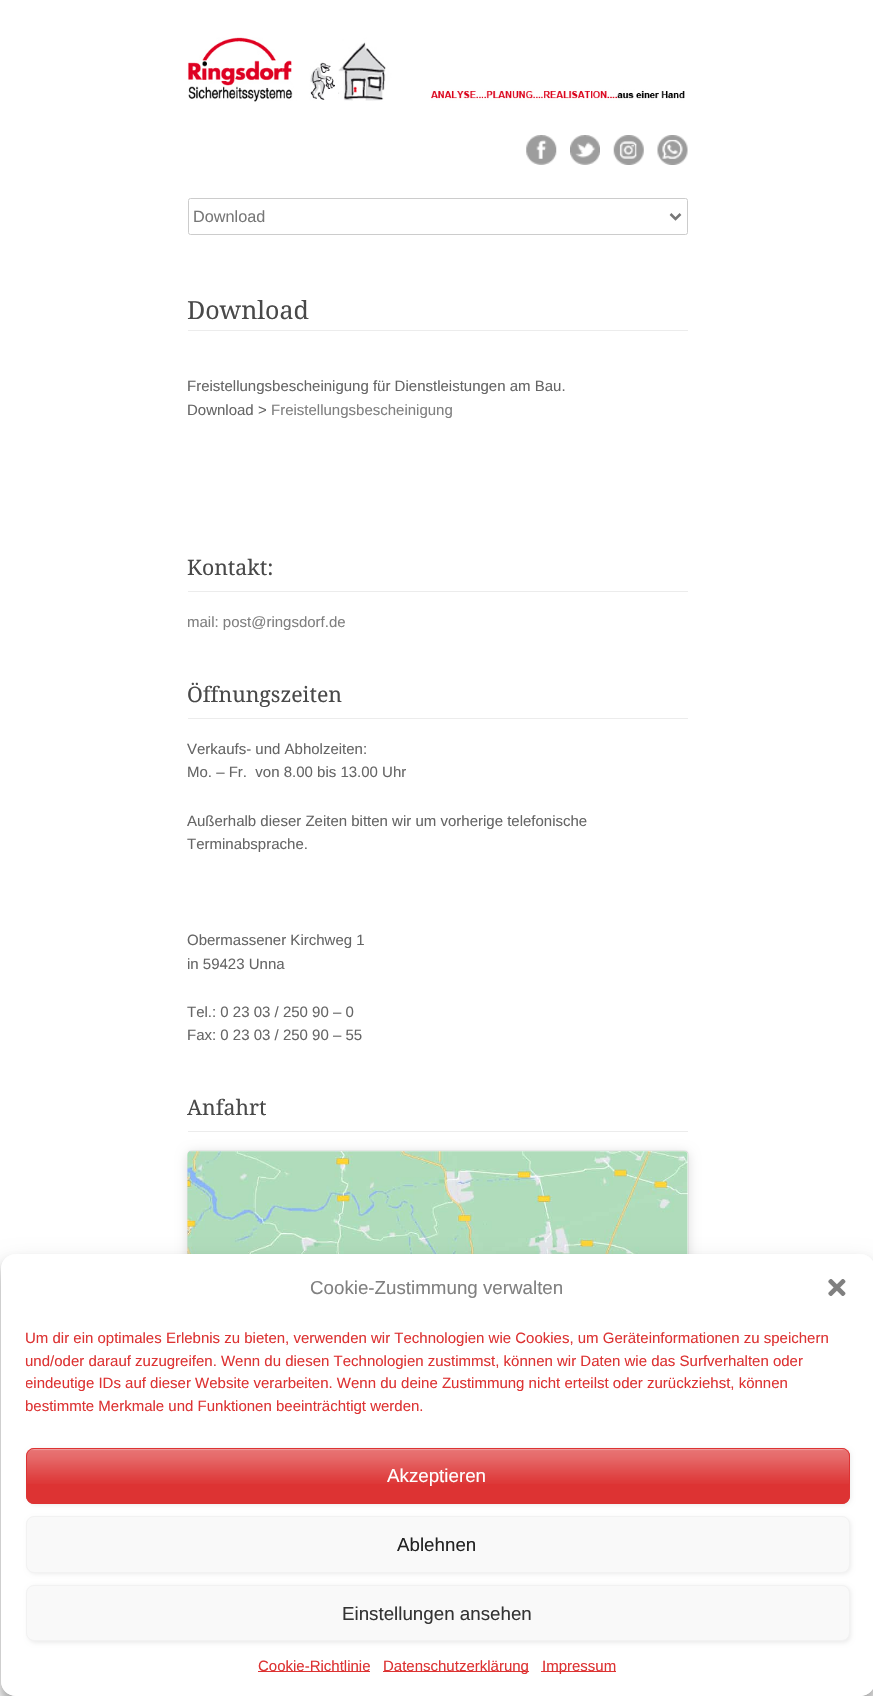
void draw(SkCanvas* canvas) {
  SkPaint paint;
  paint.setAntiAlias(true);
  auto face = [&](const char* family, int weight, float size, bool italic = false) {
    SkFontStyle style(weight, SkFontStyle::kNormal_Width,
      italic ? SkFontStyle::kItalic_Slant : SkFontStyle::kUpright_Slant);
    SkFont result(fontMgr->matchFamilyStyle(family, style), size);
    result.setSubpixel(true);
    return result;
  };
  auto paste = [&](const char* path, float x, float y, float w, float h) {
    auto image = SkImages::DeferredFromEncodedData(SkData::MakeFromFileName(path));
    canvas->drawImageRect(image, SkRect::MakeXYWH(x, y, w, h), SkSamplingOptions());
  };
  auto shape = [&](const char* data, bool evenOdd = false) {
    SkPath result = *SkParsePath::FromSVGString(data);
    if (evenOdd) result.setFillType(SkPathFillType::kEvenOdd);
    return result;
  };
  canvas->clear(0xffffffff);
  paste("img/1.png", 187, 37, 498, 65);
  paste("img/2.png", 526, 135, 31, 30);
  paste("img/3.png", 570, 135, 30, 30);
  paste("img/4.png", 613, 135, 31, 30);
  paste("img/5.png", 657, 135, 31, 30);
  paint.setStroke(true);
  paint.setStrokeWidth(1);
  paint.setColor(0xffcccccc);
  canvas->drawRoundRect(SkRect::MakeXYWH(188.5f, 198.5f, 499, 36), 2, 2, paint);
  paint.setStrokeWidth(2.5f);
  paint.setColor(0xff777777);
  canvas->drawPath(shape("M670.5 214L675.5 219L680.5 214"), paint);
  paint.setStroke(false);
  {
    const struct { float x, y, w, h; SkColor color; } items[] = {
      {188, 330, 500, 1, 0xffececec},
      {188, 591, 500, 1, 0xffececec},
      {188, 718, 500, 1, 0xffececec},
      {188, 1131, 500, 1, 0xffececec},
    };
    for (auto [x, y, w, h, color] : items) {
      paint.setColor(color);
      canvas->drawRect(SkRect::MakeXYWH(x, y, w, h), paint);
    }
  }
  paint.setColor(0x26000000);
  paint.setMaskFilter(SkMaskFilter::MakeBlur(kNormal_SkBlurStyle, 6));
  canvas->drawRoundRect(SkRect::MakeXYWH(188, 1153, 500, 500), 4, 4, paint);
  paint.setMaskFilter(nullptr);
  paint.setColor(0x80000000);
  paint.setMaskFilter(SkMaskFilter::MakeBlur(kNormal_SkBlurStyle, 0.5f));
  canvas->drawRoundRect(SkRect::MakeXYWH(188, 1151, 500, 500), 4, 4, paint);
  paint.setMaskFilter(nullptr);
  paint.setColor(0xffffffff);
  canvas->drawRoundRect(SkRect::MakeXYWH(188, 1151, 500, 500), 4, 4, paint);
  paste("img/6.png", 187, 1151, 501, 103);
  canvas->save();
  canvas->clipPath(shape("M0 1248H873V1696H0ZM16 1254H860C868.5 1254 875 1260.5 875 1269V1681C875 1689.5 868.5 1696 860 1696H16C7.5 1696 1 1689.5 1 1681V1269C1 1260.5 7.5 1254 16 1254Z", true), true);
  paint.setColor(0x3b000000);
  paint.setMaskFilter(SkMaskFilter::MakeBlur(kNormal_SkBlurStyle, 4));
  canvas->drawRoundRect(SkRect::MakeXYWH(1, 1261, 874, 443), 15, 15, paint);
  paint.setMaskFilter(nullptr);
  canvas->restore();
  canvas->save();
  canvas->clipPath(shape("M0 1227H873V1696H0ZM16 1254H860C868.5 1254 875 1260.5 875 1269V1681C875 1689.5 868.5 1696 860 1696H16C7.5 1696 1 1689.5 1 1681V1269C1 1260.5 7.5 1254 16 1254Z", true), true);
  paint.setColor(0x30000000);
  paint.setMaskFilter(SkMaskFilter::MakeBlur(kNormal_SkBlurStyle, 12.5f));
  canvas->drawRoundRect(SkRect::MakeXYWH(1, 1266, 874, 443), 15, 15, paint);
  paint.setMaskFilter(nullptr);
  canvas->restore();
  paint.setColor(0xffffffff);
  canvas->drawRoundRect(SkRect::MakeXYWH(1, 1254, 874, 442), 15, 15, paint);
  paste("img/7.png", 828, 1279, 18, 17);
  paint.setColor(0xffececec);
  paint.setMaskFilter(SkMaskFilter::MakeBlur(kNormal_SkBlurStyle, 2));
  canvas->drawRoundRect(SkRect::MakeXYWH(28, 1449, 823, 56), 8, 8, paint);
  paint.setMaskFilter(nullptr);
  paint.setColor(0xffdd3333);
  canvas->drawRoundRect(SkRect::MakeXYWH(26, 1448, 824, 56), 8, 8, paint);
  paste("img/8.png", 26, 1448, 824, 36);
  paint.setStroke(true);
  paint.setStrokeWidth(1);
  canvas->drawRoundRect(SkRect::MakeXYWH(26.5f, 1448.5f, 823, 55), 7.5f, 7.5f, paint);
  paint.setStroke(false);
  paint.setColor(0xffececec);
  paint.setMaskFilter(SkMaskFilter::MakeBlur(kNormal_SkBlurStyle, 2));
  canvas->drawRoundRect(SkRect::MakeXYWH(28, 1518, 823, 56), 8, 8, paint);
  paint.setMaskFilter(nullptr);
  paint.setColor(0xfff9f9f9);
  canvas->drawRoundRect(SkRect::MakeXYWH(26.5f, 1516.5f, 823, 56), 7.5f, 7.5f, paint);
  paint.setStroke(true);
  paint.setColor(0xfff2f2f2);
  canvas->drawRoundRect(SkRect::MakeXYWH(26.5f, 1516.5f, 823, 56), 7.5f, 7.5f, paint);
  paint.setStroke(false);
  paint.setColor(0xffececec);
  paint.setMaskFilter(SkMaskFilter::MakeBlur(kNormal_SkBlurStyle, 2));
  canvas->drawRoundRect(SkRect::MakeXYWH(28, 1586, 823, 57), 8, 8, paint);
  paint.setMaskFilter(nullptr);
  paint.setColor(0xfff9f9f9);
  canvas->drawRoundRect(SkRect::MakeXYWH(26.5f, 1585.5f, 823, 55), 7.5f, 7.5f, paint);
  paint.setStroke(true);
  paint.setColor(0xfff2f2f2);
  canvas->drawRoundRect(SkRect::MakeXYWH(26.5f, 1585.5f, 823, 55), 7.5f, 7.5f, paint);
  paint.setStroke(false);
  {
    const struct { float x, y, w, h; SkColor color; } items[] = {
      {258, 1671, 112, 1, 0xffdd3333},
      {383, 1671, 146, 1, 0xffdd3333},
      {541, 1671, 75, 1, 0xffdd3333},
    };
    for (auto [x, y, w, h, color] : items) {
      paint.setColor(color);
      canvas->drawRect(SkRect::MakeXYWH(x, y, w, h), paint);
    }
  }
  auto f0 = face("Liberation Sans", 400, 16.25f);
  paint.setColor(0xff777777);
  canvas->drawString("Download", 193, 222, f0, paint);
  auto f1 = face("Droid Serif", 400, 25);
  paint.setColor(0xff494949);
  canvas->drawString("Download", 187, 319, f1, paint);
  auto f2 = face("Liberation Sans", 400, 15);
  paint.setColor(0xff666666);
  canvas->drawString("Freistellungsbescheinigung für Dienstleistungen am Bau.", 187, 391, f2, paint);
  canvas->drawString("Download >", 187, 415, f2, paint);
  paint.setColor(0xff808080);
  canvas->drawString("Freistellungsbescheinigung", 271, 415, f2, paint);
  auto f3 = face("Droid Serif", 400, 21.25f);
  paint.setColor(0xff494949);
  canvas->drawString("Kontakt:", 187, 575, f3, paint);
  paint.setColor(0xff808080);
  canvas->drawString("mail: post@ringsdorf.de", 187, 627, f2, paint);
  paint.setColor(0xff494949);
  canvas->drawString("Öffnungszeiten", 187, 702, f3, paint);
  paint.setColor(0xff666666);
  {
    const struct { const char* s; float x, y; } items[] = {
      {"Verkaufs- und Abholzeiten:", 187, 754},
      {"Mo. – Fr.  von 8.00 bis 13.00 Uhr", 187, 777},
      {"Außerhalb dieser Zeiten bitten wir um vorherige telefonische", 187, 826},
      {"Terminabsprache.", 187, 849},
      {"Obermassener Kirchweg 1", 187, 945},
      {"in 59423 Unna", 187, 969},
      {"Tel.: 0 23 03 / 250 90 – 0", 187, 1017},
      {"Fax: 0 23 03 / 250 90 – 55", 187, 1040},
    };
    for (auto [s, x, y] : items) {
      canvas->drawString(s, x, y, f2, paint);
    }
  }
  paint.setColor(0xff494949);
  canvas->drawString("Anfahrt", 187, 1115, f3, paint);
  auto f4 = face("Liberation Sans", 400, 18.75f);
  paint.setColor(0xff808080);
  canvas->drawString("Cookie-Zustimmung verwalten", 310, 1294, f4, paint);
  paint.setColor(0xffdd3333);
  canvas->drawString("Um dir ein optimales Erlebnis zu bieten, verwenden wir Technologien wie Cookies, um Geräteinformationen zu speichern", 25, 1343, f2, paint);
  canvas->drawString("und/oder darauf zuzugreifen. Wenn du diesen Technologien zustimmst, können wir Daten wie das Surfverhalten oder", 25, 1366, f2, paint);
  canvas->save();
  canvas->clipRect(SkRect::MakeXYWH(26, 1326, 824, 97));
  canvas->drawString("eindeutige IDs auf dieser Website verarbeiten. Wenn du deine Zustimmung nicht erteilst oder zurückziehst, können", 25, 1388, f2, paint);
  canvas->restore();
  canvas->drawString("bestimmte Merkmale und Funktionen beeinträchtigt werden.", 25, 1411, f2, paint);
  paint.setColor(0xffffffff);
  canvas->drawString("Akzeptieren", 387, 1482, f4, paint);
  paint.setColor(0xff222222);
  canvas->drawString("Ablehnen", 397, 1551, f4, paint);
  paint.setColor(0xff333333);
  canvas->drawString("Einstellungen ansehen", 342, 1620, f4, paint);
  paint.setColor(0xffdd3333);
  {
    const struct { const char* s; float x, y; } items[] = {
      {"Cookie-Richtlinie", 258, 1671},
      {"Datenschutzerklärung", 383, 1671},
      {"Impressum", 542, 1671},
    };
    for (auto [s, x, y] : items) {
      canvas->drawString(s, x, y, f2, paint);
    }
  }
}
